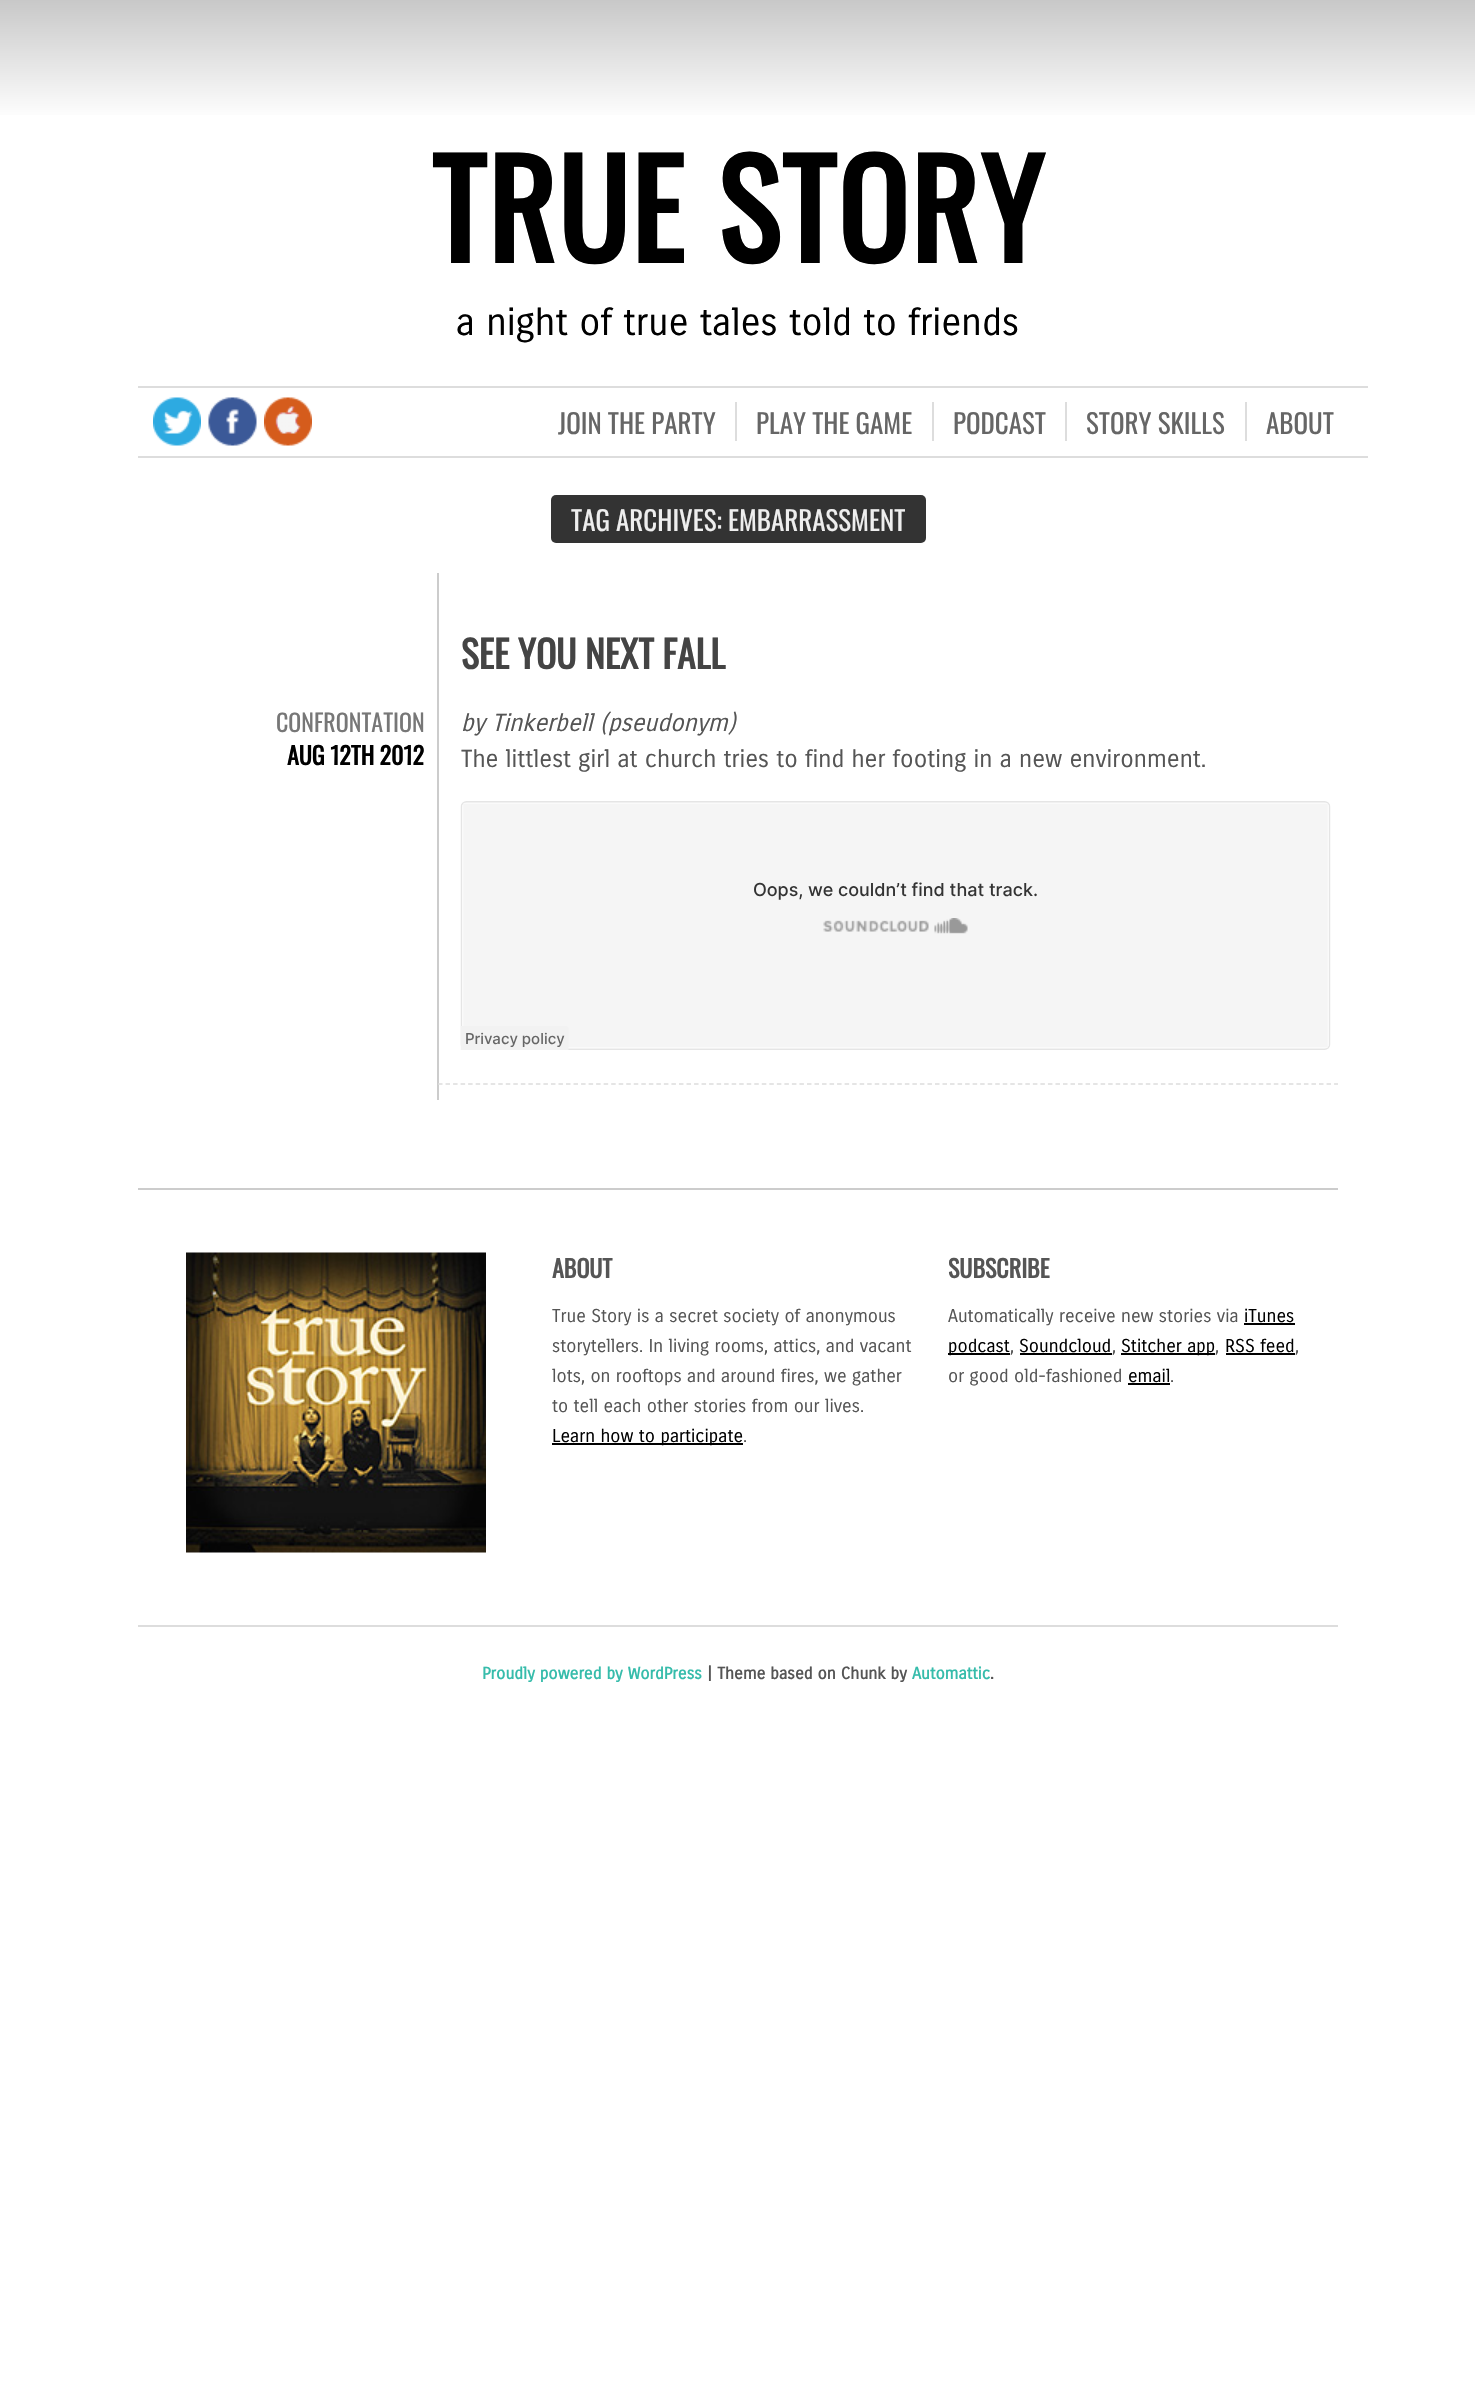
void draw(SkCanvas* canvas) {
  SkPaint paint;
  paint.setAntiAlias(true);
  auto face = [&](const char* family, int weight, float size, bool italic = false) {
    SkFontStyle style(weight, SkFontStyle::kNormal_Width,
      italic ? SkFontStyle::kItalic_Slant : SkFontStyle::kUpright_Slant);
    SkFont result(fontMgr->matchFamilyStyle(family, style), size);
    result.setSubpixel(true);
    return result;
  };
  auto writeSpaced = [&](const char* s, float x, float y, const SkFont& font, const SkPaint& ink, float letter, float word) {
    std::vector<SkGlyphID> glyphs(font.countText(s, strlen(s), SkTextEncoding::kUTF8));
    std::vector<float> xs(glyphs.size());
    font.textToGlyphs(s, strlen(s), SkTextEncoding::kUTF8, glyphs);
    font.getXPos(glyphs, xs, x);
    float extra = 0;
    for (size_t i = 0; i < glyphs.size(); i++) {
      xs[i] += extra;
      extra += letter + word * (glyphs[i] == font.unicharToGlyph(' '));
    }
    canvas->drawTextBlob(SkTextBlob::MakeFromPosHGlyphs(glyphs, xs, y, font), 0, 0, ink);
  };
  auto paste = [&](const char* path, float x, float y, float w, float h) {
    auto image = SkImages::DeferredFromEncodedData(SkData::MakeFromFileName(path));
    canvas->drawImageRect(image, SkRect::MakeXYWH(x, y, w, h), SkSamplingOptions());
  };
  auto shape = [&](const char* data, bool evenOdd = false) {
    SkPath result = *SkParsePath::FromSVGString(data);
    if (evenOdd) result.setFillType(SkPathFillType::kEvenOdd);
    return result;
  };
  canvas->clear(0xffffffff);
  {
    const SkColor colors[] = {0xffc8c8c8, 0xffffffff};
    const float stops[] = {0, 0.05f};
    const SkPoint ends[] = {{738, 0}, {738, 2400}};
    paint.setShader(SkGradientShader::MakeLinear(ends, colors, stops, 2, SkTileMode::kClamp));
    paint.setAlpha(255);
  }
  canvas->drawRect(SkRect::MakeXYWH(0, 0, 1475, 115), paint);
  paint.setShader(nullptr);
  paint.setColor(0xffdddddd);
  canvas->drawRect(SkRect::MakeXYWH(138, 386, 1230, 2), paint);
  canvas->drawRect(SkRect::MakeXYWH(138, 456, 1230, 2), paint);
  paste("img/1.png", 153, 397, 48, 49);
  paste("img/2.png", 208, 397, 49, 49);
  paste("img/3.png", 264, 397, 48, 49);
  {
    const struct { float x, y, w, h; SkColor color; } items[] = {
      {735, 402, 2, 39, 0xffdddddd},
      {932, 402, 2, 39, 0xffdddddd},
      {1065, 402, 2, 39, 0xffdddddd},
      {1245, 402, 2, 39, 0xffdddddd},
    };
    for (auto [x, y, w, h, color] : items) {
      paint.setColor(color);
      canvas->drawRect(SkRect::MakeXYWH(x, y, w, h), paint);
    }
  }
  paint.setColor(0xff333333);
  canvas->drawRoundRect(SkRect::MakeXYWH(551, 495, 375, 48), 5, 5, paint);
  paint.setColor(0xffcccccc);
  canvas->drawRect(SkRect::MakeXYWH(437, 573, 2, 527), paint);
  paint.setStroke(true);
  paint.setStrokeWidth(1.5f);
  paint.setColor(0xffdddddd);
  paint.setPathEffect(SkDashPathEffect::Make({{4.5f, 3.03f}}, 0));
  canvas->drawPath(shape("M438 1084H1338"), paint);
  paint.setPathEffect(nullptr);
  paste("img/4.png", 460, 801, 871, 249);
  paint.setStroke(false);
  paint.setColor(0xffcccccc);
  canvas->drawRect(SkRect::MakeXYWH(138, 1188, 1200, 2), paint);
  paste("img/5.png", 186, 1252, 300, 301);
  {
    const struct { float x, y, w, h; SkColor color; } items[] = {
      {552, 1443, 191, 2, 0xff000000},
      {1244, 1323, 51, 2, 0xff000000},
      {948, 1353, 62, 2, 0xff000000},
      {1020, 1353, 92, 2, 0xff000000},
      {1121, 1353, 94, 2, 0xff000000},
      {1226, 1353, 69, 2, 0xff000000},
      {1128, 1383, 42, 2, 0xff000000},
      {138, 1625, 1200, 2, 0xffdddddd},
    };
    for (auto [x, y, w, h, color] : items) {
      paint.setColor(color);
      canvas->drawRect(SkRect::MakeXYWH(x, y, w, h), paint);
    }
  }
  auto f0 = face("Oswald", 700, 132);
  paint.setColor(0xff000000);
  writeSpaced("TRUE STORY", 431, 263, f0, paint, 1.5f, 0);
  auto f1 = face("Carrois Gothic", 400, 37.5f);
  canvas->drawString("a night of true tales told to friends", 456, 335, f1, paint);
  auto f2 = face("Oswald", 400, 27);
  paint.setColor(0xff666666);
  {
    const struct { const char* s; float x, y; } items[] = {
      {"JOIN THE PARTY", 558, 434},
      {"PLAY THE GAME", 756, 434},
      {"PODCAST", 953, 434},
      {"STORY SKILLS", 1086, 434},
      {"ABOUT", 1266, 434},
    };
    for (auto [s, x, y] : items) {
      canvas->drawString(s, x, y, f2, paint);
    }
  }
  paint.setColor(0xffeeeeee);
  canvas->drawString("TAG ARCHIVES: EMBARRASSMENT", 571, 531, f2, paint);
  auto f3 = face("Oswald", 400, 24);
  paint.setColor(0xff777777);
  canvas->drawString("CONFRONTATION", 276, 732, f3, paint);
  auto f4 = face("Oswald", 700, 24);
  paint.setColor(0xff000000);
  canvas->drawString("AUG 12TH 2012", 287, 765, f4, paint);
  auto f5 = face("Oswald", 700, 37.5f);
  paint.setColor(0xff444444);
  canvas->drawString("SEE YOU NEXT FALL", 461, 669, f5, paint);
  auto f6 = face("Carrois Gothic", 400, 24, true);
  paint.setColor(0xff555555);
  canvas->drawString("by Tinkerbell (pseudonym)", 461, 731, f6, paint);
  auto f7 = face("Carrois Gothic", 400, 24);
  canvas->drawString("The littlest girl at church tries to find her footing in a new environment.", 461, 767, f7, paint);
  canvas->drawString("ABOUT", 552, 1278, f4, paint);
  auto f8 = face("Carrois Gothic", 400, 18);
  {
    const struct { const char* s; float x, y; } items[] = {
      {"True Story is a secret society of anonymous", 552, 1322},
      {"storytellers. In living rooms, attics, and vacant", 552, 1352},
      {"lots, on rooftops and around fires, we gather", 552, 1382},
      {"to tell each other stories from our lives.", 552, 1412},
    };
    for (auto [s, x, y] : items) {
      canvas->drawString(s, x, y, f8, paint);
    }
  }
  paint.setColor(0xff000000);
  canvas->drawString("Learn how to participate", 552, 1442, f8, paint);
  paint.setColor(0xff555555);
  canvas->drawString(".", 743, 1442, f8, paint);
  canvas->drawString("SUBSCRIBE", 948, 1278, f4, paint);
  canvas->drawString("Automatically receive new stories via", 948, 1322, f8, paint);
  paint.setColor(0xff000000);
  canvas->drawString("iTunes", 1244, 1322, f8, paint);
  canvas->drawString("podcast", 948, 1352, f8, paint);
  paint.setColor(0xff555555);
  canvas->drawString(",", 1010, 1352, f8, paint);
  paint.setColor(0xff000000);
  canvas->drawString("Soundcloud", 1019, 1352, f8, paint);
  paint.setColor(0xff555555);
  canvas->drawString(",", 1112, 1352, f8, paint);
  paint.setColor(0xff000000);
  canvas->drawString("Stitcher app", 1121, 1352, f8, paint);
  paint.setColor(0xff555555);
  canvas->drawString(",", 1215, 1352, f8, paint);
  paint.setColor(0xff000000);
  canvas->drawString("RSS feed", 1225, 1352, f8, paint);
  paint.setColor(0xff555555);
  canvas->drawString(",", 1295, 1352, f8, paint);
  canvas->drawString("or good old-fashioned", 948, 1382, f8, paint);
  paint.setColor(0xff000000);
  canvas->drawString("email", 1128, 1382, f8, paint);
  paint.setColor(0xff555555);
  canvas->drawString(".", 1170, 1382, f8, paint);
  auto f9 = face("Carrois Gothic", 700, 16.5f);
  paint.setColor(0xff36bcab);
  canvas->drawString("Proudly powered by WordPress", 482, 1679, f9, paint);
  paint.setColor(0xff555555);
  canvas->drawString("| Theme based on Chunk by", 707, 1679, f9, paint);
  paint.setColor(0xff36bcab);
  canvas->drawString("Automattic", 912, 1679, f9, paint);
  paint.setColor(0xff555555);
  canvas->drawString(".", 990, 1679, f9, paint);
}
